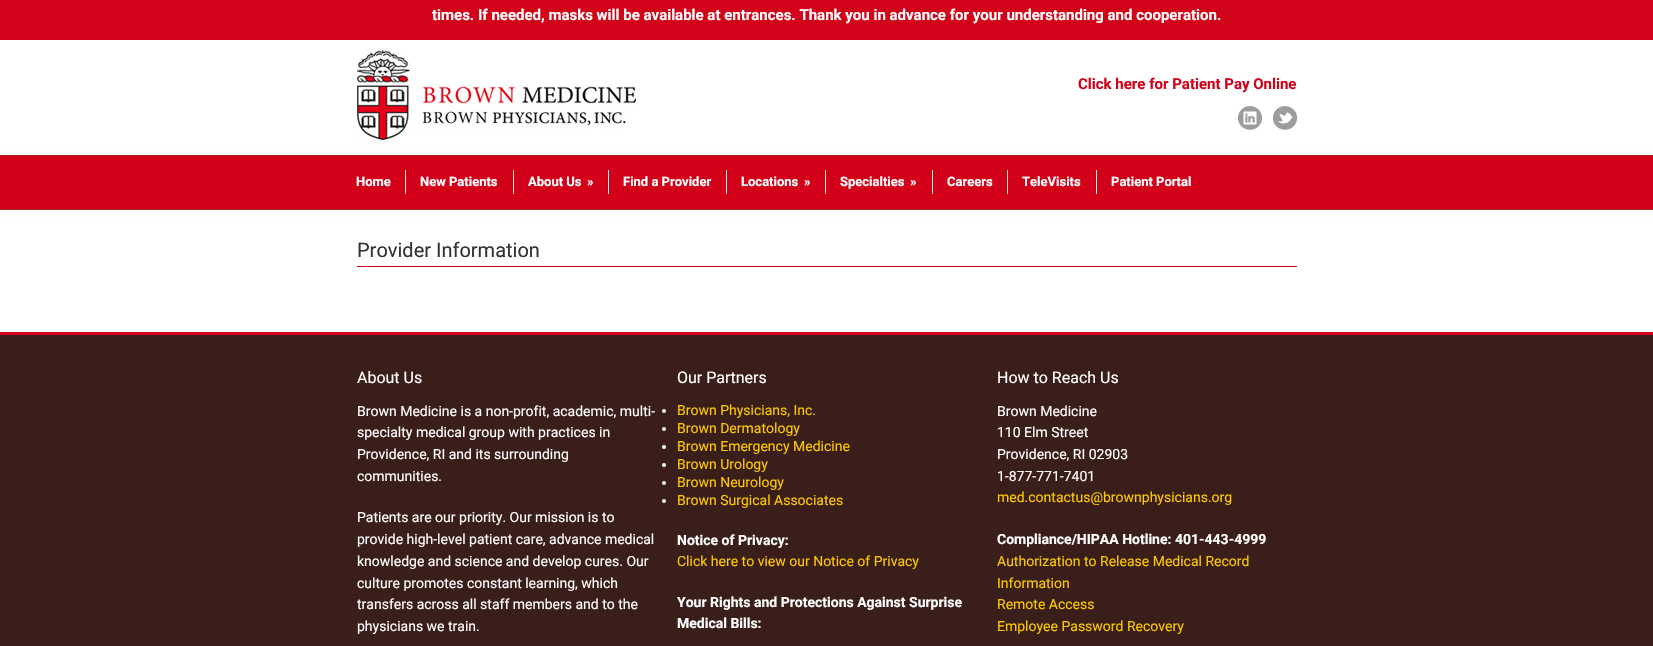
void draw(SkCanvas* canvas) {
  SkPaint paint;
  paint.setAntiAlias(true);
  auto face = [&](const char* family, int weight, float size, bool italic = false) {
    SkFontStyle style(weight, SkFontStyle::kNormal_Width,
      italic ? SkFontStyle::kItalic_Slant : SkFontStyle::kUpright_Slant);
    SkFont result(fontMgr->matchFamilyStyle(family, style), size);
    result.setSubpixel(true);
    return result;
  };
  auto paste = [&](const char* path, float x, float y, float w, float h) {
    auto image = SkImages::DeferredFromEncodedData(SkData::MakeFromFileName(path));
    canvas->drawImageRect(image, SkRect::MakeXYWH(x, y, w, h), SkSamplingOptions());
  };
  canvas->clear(0xffffffff);
  paint.setColor(0xffd20419);
  canvas->drawRect(SkRect::MakeXYWH(0, 0, 1653, 40), paint);
  paste("img/1.png", 357, 50, 279, 90);
  paste("img/2.png", 1238, 106, 24, 24);
  paste("img/3.png", 1273, 106, 24, 24);
  paint.setColor(0xfff5f5f5);
  paint.setMaskFilter(SkMaskFilter::MakeBlur(kNormal_SkBlurStyle, 2.5f));
  canvas->drawRect(SkRect::MakeXYWH(1, 157, 1651, 53), paint);
  paint.setMaskFilter(nullptr);
  {
    const struct { float x, y, w, h; SkColor color; } items[] = {
      {0, 156, 1653, 53, 0xffd20119},
      {0, 155, 1653, 1, 0xffae251f},
      {0, 209, 1653, 1, 0xffae251f},
      {404, 170, 1, 24, 0xffcc0000},
      {512, 170, 1, 24, 0xffcc0000},
      {405, 170, 1, 24, 0xffe7e7e7},
      {607, 170, 1, 24, 0xffcc0000},
      {513, 170, 1, 24, 0xffe7e7e7},
      {725, 170, 1, 24, 0xffcc0000},
      {608, 170, 1, 24, 0xffe7e7e7},
      {824, 170, 1, 24, 0xffcc0000},
      {726, 170, 1, 24, 0xffe7e7e7},
      {931, 170, 1, 24, 0xffcc0000},
      {825, 170, 1, 24, 0xffe7e7e7},
      {1006, 170, 1, 24, 0xffcc0000},
      {932, 170, 1, 24, 0xffe7e7e7},
      {1095, 170, 1, 24, 0xffcc0000},
      {1007, 170, 1, 24, 0xffe7e7e7},
      {1096, 170, 1, 24, 0xffe7e7e7},
      {357, 266, 940, 1, 0xffd20119},
      {0, 335, 1653, 311, 0xff3a1e1a},
      {0, 332, 1653, 3, 0xffd20119},
    };
    for (auto [x, y, w, h, color] : items) {
      paint.setColor(color);
      canvas->drawRect(SkRect::MakeXYWH(x, y, w, h), paint);
    }
  }
  paint.setColor(0xffffffff);
  canvas->drawCircle(664, 411, 2, paint);
  canvas->drawCircle(664, 429, 2, paint);
  canvas->drawCircle(664, 447, 2, paint);
  canvas->drawCircle(664, 465, 2, paint);
  canvas->drawCircle(664, 483, 2, paint);
  canvas->drawCircle(664, 501, 2, paint);
  auto f0 = face("Roboto", 700, 15);
  canvas->drawString("times. If needed, masks will be available at entrances. Thank you in advance for your understanding and cooperation.", 432, 20, f0, paint);
  paint.setColor(0xffd20119);
  canvas->drawString("Click here for Patient Pay Online", 1078, 89, f0, paint);
  auto f1 = face("Roboto", 700, 13);
  paint.setColor(0xffffffff);
  {
    const struct { const char* s; float x, y; } items[] = {
      {"Home", 356, 186},
      {"New Patients", 420, 186},
      {"About Us", 528, 186},
      {"»", 587, 186},
      {"Find a Provider", 623, 186},
      {"Locations", 741, 186},
      {"»", 804, 186},
      {"Specialties", 840, 186},
      {"»", 910, 186},
      {"Careers", 947, 186},
      {"TeleVisits", 1022, 186},
      {"Patient Portal", 1111, 186},
    };
    for (auto [s, x, y] : items) {
      canvas->drawString(s, x, y, f1, paint);
    }
  }
  auto f2 = face("Roboto", 400, 20);
  paint.setColor(0xff333333);
  canvas->drawString("Provider Information", 357, 257, f2, paint);
  auto f3 = face("Roboto", 400, 16);
  paint.setColor(0xffffffff);
  canvas->drawString("About Us", 357, 383, f3, paint);
  auto f4 = face("Roboto", 400, 14);
  {
    const struct { const char* s; float x, y; } items[] = {
      {"Brown Medicine is a non-profit, academic, multi-", 357, 416},
      {"specialty medical group with practices in", 357, 437},
      {"Providence, RI and its surrounding", 357, 459},
      {"communities.", 357, 481},
      {"Patients are our priority. Our mission is to", 357, 522},
      {"provide high-level patient care, advance medical", 357, 544},
      {"knowledge and science and develop cures. Our", 357, 566},
      {"culture promotes constant learning, which", 357, 588},
      {"transfers across all staff members and to the", 357, 609},
      {"physicians we train.", 357, 631},
    };
    for (auto [s, x, y] : items) {
      canvas->drawString(s, x, y, f4, paint);
    }
  }
  canvas->drawString("Our Partners", 677, 383, f3, paint);
  paint.setColor(0xfffcc800);
  {
    const struct { const char* s; float x, y; } items[] = {
      {"Brown Physicians, Inc.", 677, 415},
      {"Brown Dermatology", 677, 433},
      {"Brown Emergency Medicine", 677, 451},
      {"Brown Urology", 677, 469},
      {"Brown Neurology", 677, 487},
      {"Brown Surgical Associates", 677, 505},
    };
    for (auto [s, x, y] : items) {
      canvas->drawString(s, x, y, f4, paint);
    }
  }
  auto f5 = face("Roboto", 700, 14);
  paint.setColor(0xffffffff);
  canvas->drawString("Notice of Privacy:", 677, 545, f5, paint);
  paint.setColor(0xfffcc800);
  canvas->drawString("Click here to view our Notice of Privacy", 677, 566, f4, paint);
  paint.setColor(0xffffffff);
  canvas->drawString("Your Rights and Protections Against Surprise", 677, 607, f5, paint);
  canvas->drawString("Medical Bills:", 677, 628, f5, paint);
  canvas->drawString("How to Reach Us", 997, 383, f3, paint);
  {
    const struct { const char* s; float x, y; } items[] = {
      {"Brown Medicine", 997, 416},
      {"110 Elm Street", 997, 437},
      {"Providence, RI 02903", 997, 459},
      {"1-877-771-7401", 997, 481},
    };
    for (auto [s, x, y] : items) {
      canvas->drawString(s, x, y, f4, paint);
    }
  }
  paint.setColor(0xfffcc800);
  canvas->drawString("med.contactus@brownphysicians.org", 997, 502, f4, paint);
  paint.setColor(0xffffffff);
  canvas->drawString("Compliance/HIPAA Hotline: 401-443-4999", 997, 544, f5, paint);
  paint.setColor(0xfffcc800);
  {
    const struct { const char* s; float x, y; } items[] = {
      {"Authorization to Release Medical Record", 997, 566},
      {"Information", 997, 588},
      {"Remote Access", 997, 609},
      {"Employee Password Recovery", 997, 631},
    };
    for (auto [s, x, y] : items) {
      canvas->drawString(s, x, y, f4, paint);
    }
  }
}
